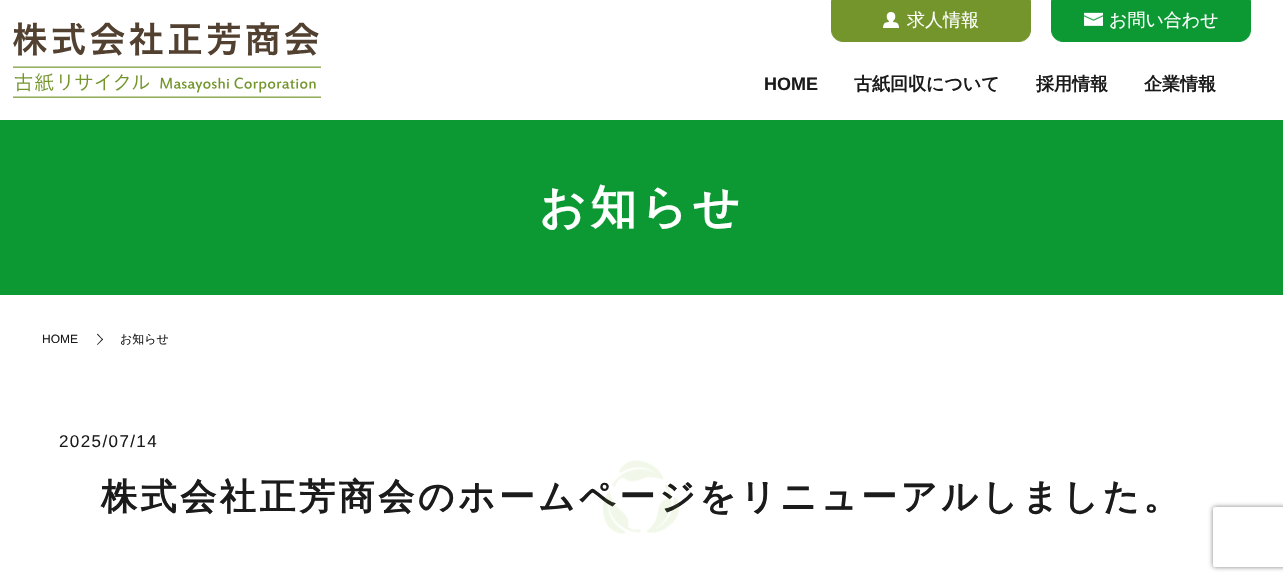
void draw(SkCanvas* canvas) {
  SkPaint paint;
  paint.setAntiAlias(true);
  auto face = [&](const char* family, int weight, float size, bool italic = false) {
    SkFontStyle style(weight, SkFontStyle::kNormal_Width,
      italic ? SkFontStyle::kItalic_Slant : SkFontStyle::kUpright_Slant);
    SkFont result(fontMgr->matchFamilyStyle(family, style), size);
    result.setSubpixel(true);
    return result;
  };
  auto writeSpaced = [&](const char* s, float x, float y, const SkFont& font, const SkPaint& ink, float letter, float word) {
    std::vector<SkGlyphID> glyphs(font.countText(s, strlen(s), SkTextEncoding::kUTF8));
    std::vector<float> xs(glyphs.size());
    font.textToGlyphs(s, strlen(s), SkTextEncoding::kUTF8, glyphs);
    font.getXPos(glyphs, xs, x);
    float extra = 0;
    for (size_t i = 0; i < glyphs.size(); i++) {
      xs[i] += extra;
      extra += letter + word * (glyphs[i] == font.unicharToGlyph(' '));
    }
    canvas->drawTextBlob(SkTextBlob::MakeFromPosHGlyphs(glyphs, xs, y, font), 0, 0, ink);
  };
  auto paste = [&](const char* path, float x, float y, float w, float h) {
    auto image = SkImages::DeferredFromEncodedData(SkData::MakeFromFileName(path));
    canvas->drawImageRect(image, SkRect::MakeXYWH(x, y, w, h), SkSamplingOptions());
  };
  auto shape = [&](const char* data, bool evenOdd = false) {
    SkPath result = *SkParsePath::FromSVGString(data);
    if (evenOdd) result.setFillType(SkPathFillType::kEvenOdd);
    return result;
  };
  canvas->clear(0xffffffff);
  paint.setColor(0xff73952b);
  canvas->drawPath(shape("M831.5 .5H1030.5V30C1030.5 36.5 1025.5 41.5 1019 41.5H843C836.5 41.5 831.5 36.5 831.5 30Z"), paint);
  paint.setStroke(true);
  paint.setStrokeWidth(1);
  canvas->drawPath(shape("M831.5 .5H1030.5V30C1030.5 36.5 1025.5 41.5 1019 41.5H843C836.5 41.5 831.5 36.5 831.5 30Z"), paint);
  paste("img/1.png", 883, 12, 16, 16);
  paint.setStroke(false);
  paint.setColor(0xff0c9934);
  canvas->drawPath(shape("M1051.5 .5H1250.5V30C1250.5 36.5 1245.5 41.5 1239 41.5H1063C1056.5 41.5 1051.5 36.5 1051.5 30Z"), paint);
  paint.setStroke(true);
  canvas->drawPath(shape("M1051.5 .5H1250.5V30C1250.5 36.5 1245.5 41.5 1239 41.5H1063C1056.5 41.5 1051.5 36.5 1051.5 30Z"), paint);
  paste("img/2.png", 1084, 12, 19, 14);
  paste("img/3.png", 13, 22, 308, 76);
  paint.setStroke(false);
  canvas->drawRect(SkRect::MakeXYWH(0, 120, 1283, 175), paint);
  paint.setColor(0xff1b1b1b);
  canvas->drawPath(shape("M97.5 333.5L103 339.5L102.5 340L97 334.5Z"), paint);
  canvas->drawPath(shape("M102.5 338.5L103 339.5L97.5 345L97 344.5Z"), paint);
  canvas->save();
  canvas->clipPath(shape("M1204 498H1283V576H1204ZM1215 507H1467C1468 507 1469 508 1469 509V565C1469 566 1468 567 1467 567H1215C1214 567 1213 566 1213 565V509C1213 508 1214 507 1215 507Z", true), true);
  paint.setColor(0xff808080);
  paint.setMaskFilter(SkMaskFilter::MakeBlur(kNormal_SkBlurStyle, 2.5f));
  canvas->drawRoundRect(SkRect::MakeXYWH(1213, 507, 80, 60), 2, 2, paint);
  paint.setMaskFilter(nullptr);
  canvas->restore();
  auto f0 = face("WenQuanYi Zen Hei", 500, 18);
  paint.setColor(0xffffffff);
  canvas->drawString("求人情報", 907, 26, f0, paint);
  canvas->drawString("お問い合わせ", 1109, 26, f0, paint);
  auto f1 = face("Liberation Sans", 700, 18);
  paint.setColor(0xff1b1b1b);
  canvas->drawString("HOME", 764, 90, f1, paint);
  auto f2 = face("WenQuanYi Zen Hei", 700, 18);
  {
    const struct { const char* s; float x, y; } items[] = {
      {"古紙回収について", 854, 90},
      {"採用情報", 1036, 90},
      {"企業情報", 1144, 90},
    };
    for (auto [s, x, y] : items) {
      canvas->drawString(s, x, y, f2, paint);
    }
  }
  auto f3 = face("WenQuanYi Zen Hei", 700, 46);
  paint.setColor(0xffffffff);
  writeSpaced("お知らせ", 539, 223, f3, paint, 4.5f, 0);
  auto f4 = face("Liberation Sans", 400, 12);
  paint.setColor(0xff1b1b1b);
  canvas->drawString("HOME", 42, 343, f4, paint);
  auto f5 = face("WenQuanYi Zen Hei", 500, 12);
  canvas->drawString("お知らせ", 120, 343, f5, paint);
  auto f6 = face("Liberation Sans", 400, 17);
  writeSpaced("2025/07/14", 59, 447, f6, paint, 1.4f, 0);
  auto f7 = face("WenQuanYi Zen Hei", 700, 36);
  writeSpaced("株式会社正芳商会のホームページをリニューアルしました。", 101, 509, f7, paint, 3.6f, 0);
  paste("img/4.png", 603, 460, 76, 74);
}
